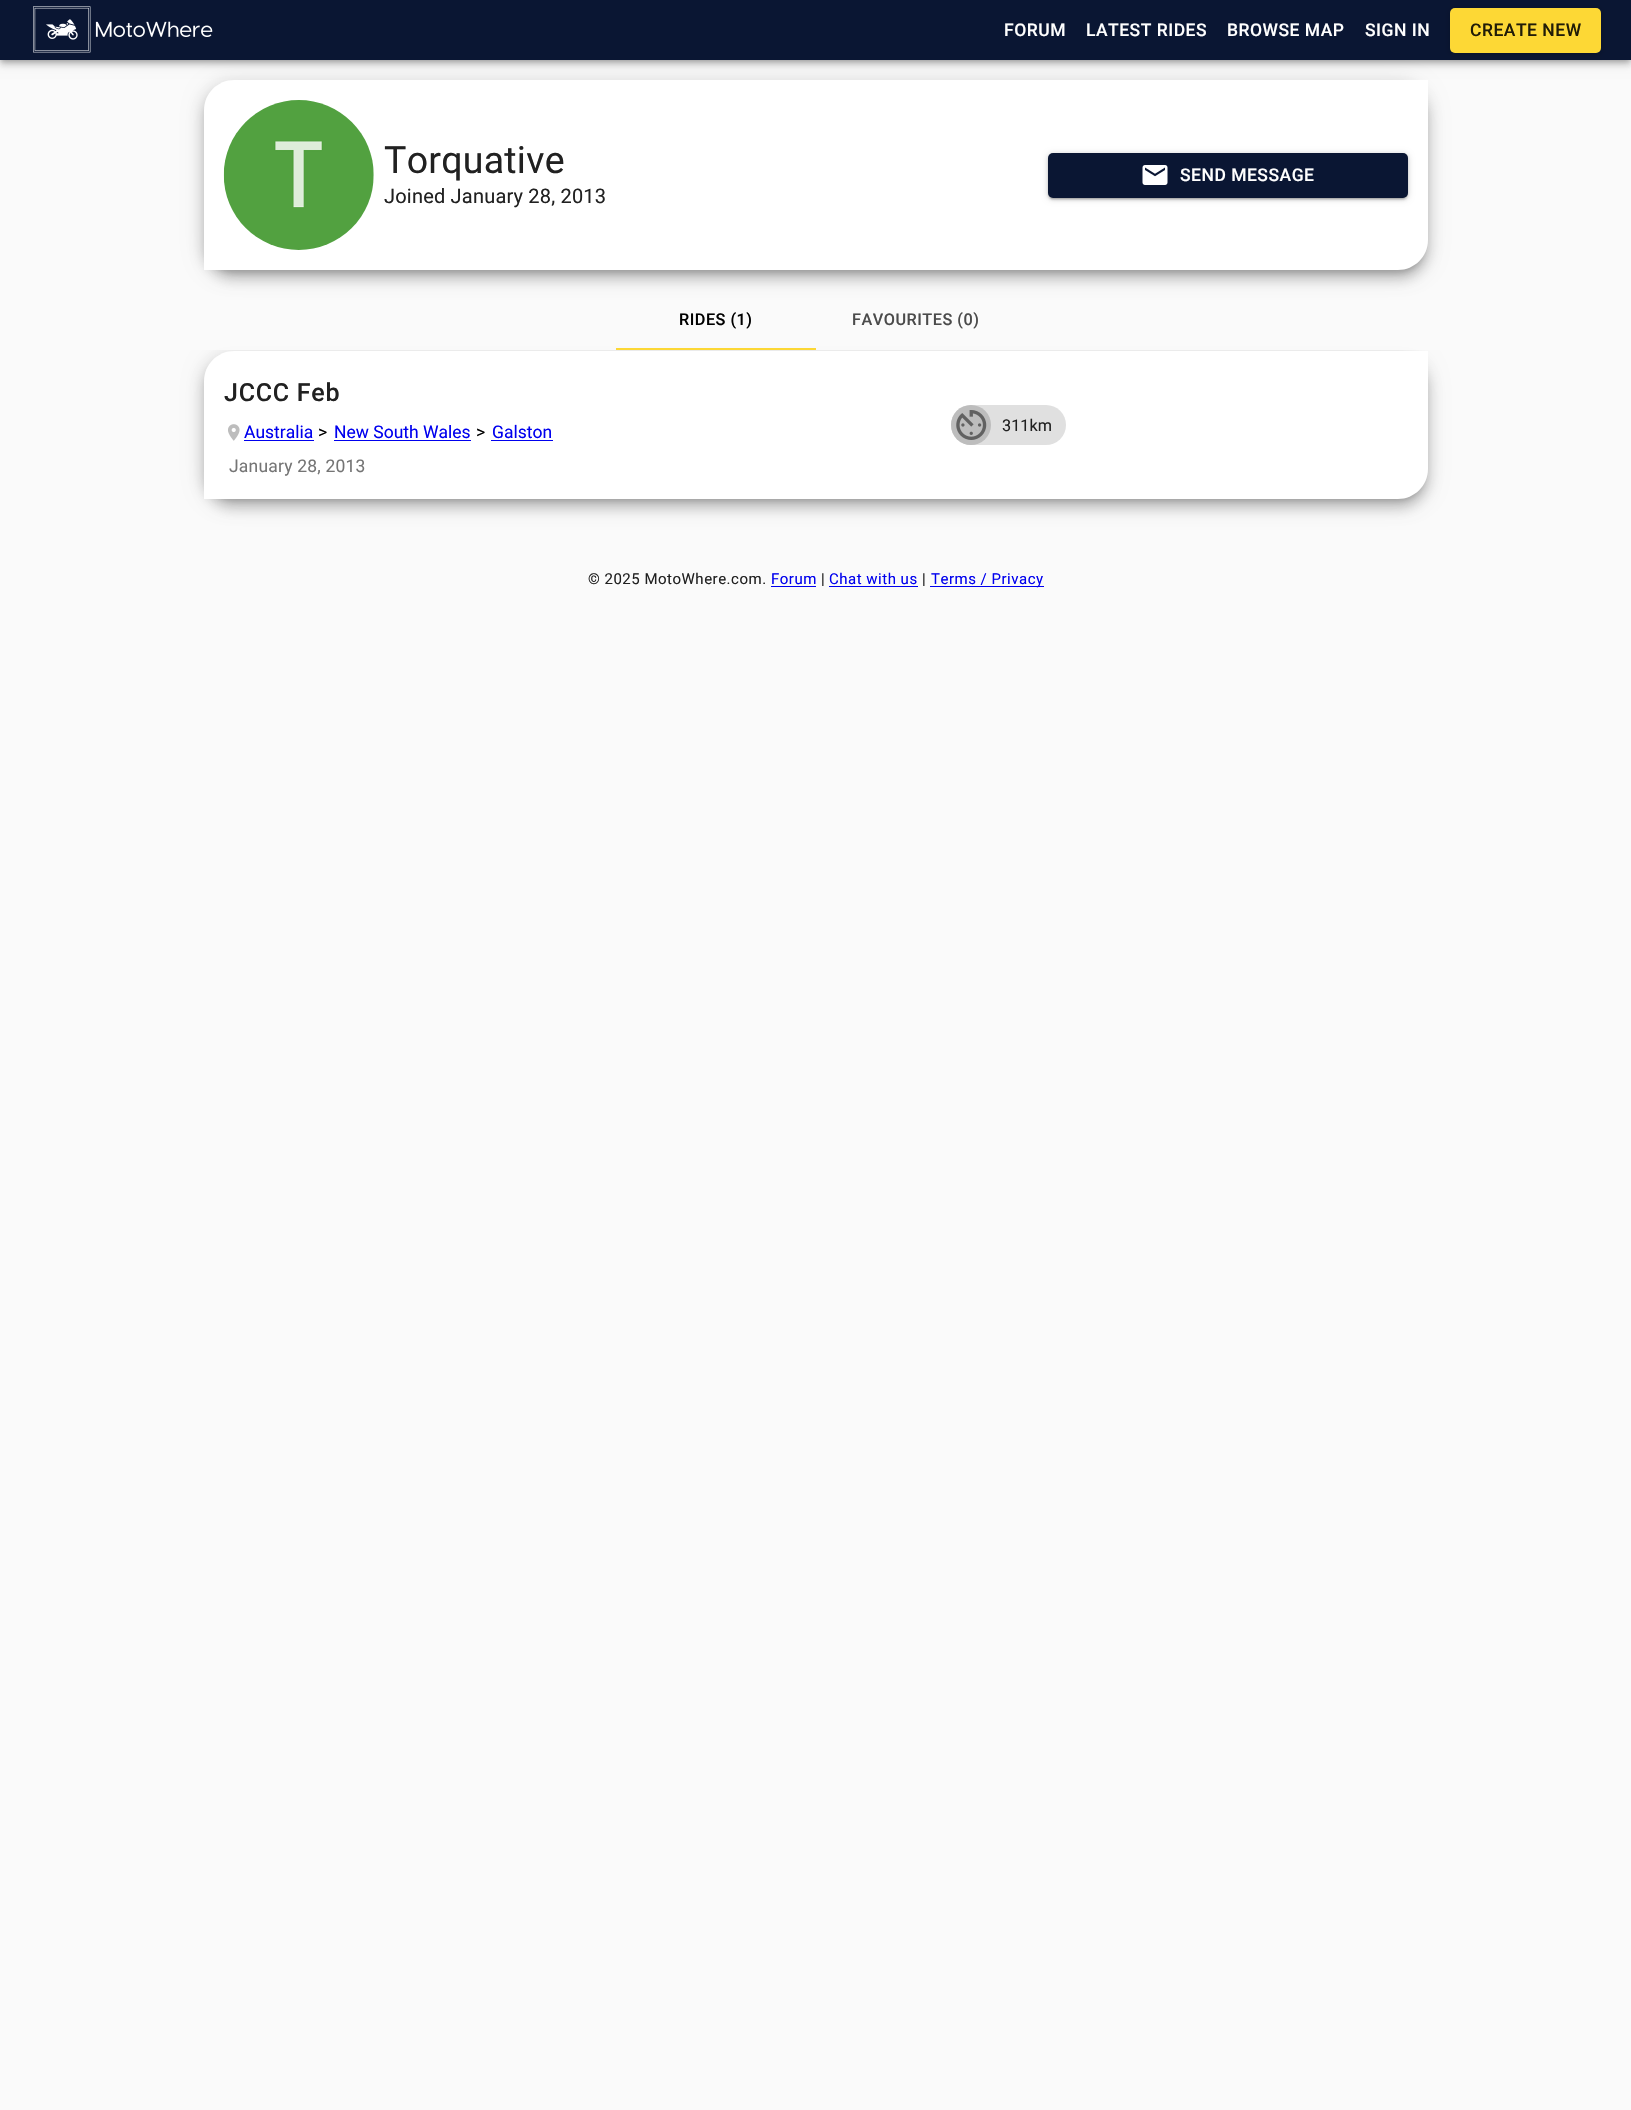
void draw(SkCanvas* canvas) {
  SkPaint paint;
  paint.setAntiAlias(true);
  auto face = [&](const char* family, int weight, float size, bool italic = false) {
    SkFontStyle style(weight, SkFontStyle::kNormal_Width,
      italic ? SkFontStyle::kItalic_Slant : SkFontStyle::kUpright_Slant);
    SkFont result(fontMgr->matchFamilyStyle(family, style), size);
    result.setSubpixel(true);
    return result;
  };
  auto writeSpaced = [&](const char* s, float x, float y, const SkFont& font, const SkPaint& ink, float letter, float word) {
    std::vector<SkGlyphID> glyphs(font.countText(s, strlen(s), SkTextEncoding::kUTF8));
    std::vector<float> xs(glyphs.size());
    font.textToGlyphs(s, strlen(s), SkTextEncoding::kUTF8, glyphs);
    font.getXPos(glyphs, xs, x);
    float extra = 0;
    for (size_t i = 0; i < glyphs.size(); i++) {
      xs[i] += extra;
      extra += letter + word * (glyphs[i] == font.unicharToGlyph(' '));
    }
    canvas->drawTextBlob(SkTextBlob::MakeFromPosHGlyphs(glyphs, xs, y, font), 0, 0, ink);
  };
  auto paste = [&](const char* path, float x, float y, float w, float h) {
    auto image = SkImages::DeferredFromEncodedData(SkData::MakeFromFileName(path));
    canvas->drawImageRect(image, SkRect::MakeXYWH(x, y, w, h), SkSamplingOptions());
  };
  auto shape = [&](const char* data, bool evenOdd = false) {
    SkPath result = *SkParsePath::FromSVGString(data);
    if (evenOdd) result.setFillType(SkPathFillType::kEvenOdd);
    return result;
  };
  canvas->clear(0xfffafafa);
  paint.setColor(0x1f000000);
  paint.setMaskFilter(SkMaskFilter::MakeBlur(kNormal_SkBlurStyle, 6));
  canvas->drawRect(SkRect::MakeXYWH(0, 1, 1631, 60), paint);
  paint.setMaskFilter(nullptr);
  paint.setColor(0x24000000);
  paint.setMaskFilter(SkMaskFilter::MakeBlur(kNormal_SkBlurStyle, 3));
  canvas->drawRect(SkRect::MakeXYWH(0, 5, 1631, 60), paint);
  paint.setMaskFilter(nullptr);
  paint.setColor(0x33000000);
  paint.setMaskFilter(SkMaskFilter::MakeBlur(kNormal_SkBlurStyle, 2.5f));
  canvas->drawRect(SkRect::MakeXYWH(1, 4, 1629, 57), paint);
  paint.setMaskFilter(nullptr);
  paint.setColor(0x1f000000);
  paint.setMaskFilter(SkMaskFilter::MakeBlur(kNormal_SkBlurStyle, 9));
  canvas->drawRoundRect(SkRect::MakeXYWH(201, 81, 1229, 195), 33, 33, paint);
  paint.setMaskFilter(nullptr);
  paint.setColor(0xff0a1633);
  canvas->drawRect(SkRect::MakeXYWH(0, 0, 1631, 60), paint);
  paste("img/1.png", 33, 6, 58, 47);
  paste("img/2.png", 95, 21, 118, 16);
  paint.setColor(0x33000000);
  paint.setMaskFilter(SkMaskFilter::MakeBlur(kNormal_SkBlurStyle, 3));
  canvas->drawRoundRect(SkRect::MakeXYWH(1450, 9, 151, 45), 5, 5, paint);
  paint.setMaskFilter(nullptr);
  paint.setColor(0xfffdd835);
  canvas->drawRoundRect(SkRect::MakeXYWH(1450, 8, 151, 45), 5, 5, paint);
  paint.setColor(0x24000000);
  paint.setMaskFilter(SkMaskFilter::MakeBlur(kNormal_SkBlurStyle, 6));
  canvas->drawRoundRect(SkRect::MakeXYWH(203, 89, 1226, 192), 31, 31, paint);
  paint.setMaskFilter(nullptr);
  paint.setColor(0x33000000);
  paint.setMaskFilter(SkMaskFilter::MakeBlur(kNormal_SkBlurStyle, 3));
  canvas->drawRoundRect(SkRect::MakeXYWH(208, 90, 1216, 183), 26, 26, paint);
  paint.setMaskFilter(nullptr);
  paint.setColor(0xffffffff);
  canvas->drawPath(shape("M234 80H1428V240C1428 256.5 1414.5 270 1398 270H204V110C204 93.5 217.5 80 234 80Z"), paint);
  paste("img/3.png", 223, 100, 151, 150);
  paint.setColor(0x1f000000);
  paint.setMaskFilter(SkMaskFilter::MakeBlur(kNormal_SkBlurStyle, 0.5f));
  canvas->drawRoundRect(SkRect::MakeXYWH(1050, 159, 355, 40), 2.5f, 2.5f, paint);
  paint.setMaskFilter(nullptr);
  paint.setColor(0x24000000);
  paint.setMaskFilter(SkMaskFilter::MakeBlur(kNormal_SkBlurStyle, 1));
  canvas->drawRoundRect(SkRect::MakeXYWH(1048, 155, 360, 45), 5, 5, paint);
  paint.setMaskFilter(nullptr);
  paint.setColor(0x33000000);
  paint.setMaskFilter(SkMaskFilter::MakeBlur(kNormal_SkBlurStyle, 3));
  canvas->drawRoundRect(SkRect::MakeXYWH(1048, 154, 360, 45), 5, 5, paint);
  paint.setMaskFilter(nullptr);
  paint.setColor(0xff0a1633);
  canvas->drawRoundRect(SkRect::MakeXYWH(1048, 153, 360, 45), 5, 5, paint);
  paste("img/4.png", 1142, 165, 26, 20);
  paint.setColor(0xfffdd835);
  canvas->drawRect(SkRect::MakeXYWH(616, 348, 200, 2), paint);
  canvas->save();
  canvas->clipRect(SkRect::MakeXYWH(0, 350, 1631, 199));
  paint.setColor(0x1f000000);
  paint.setMaskFilter(SkMaskFilter::MakeBlur(kNormal_SkBlurStyle, 9));
  canvas->drawRoundRect(SkRect::MakeXYWH(201, 353, 1229, 152), 33, 33, paint);
  paint.setMaskFilter(nullptr);
  canvas->restore();
  paint.setColor(0x24000000);
  paint.setMaskFilter(SkMaskFilter::MakeBlur(kNormal_SkBlurStyle, 6));
  canvas->drawRoundRect(SkRect::MakeXYWH(203, 360, 1226, 150), 31, 31, paint);
  paint.setMaskFilter(nullptr);
  paint.setColor(0x33000000);
  paint.setMaskFilter(SkMaskFilter::MakeBlur(kNormal_SkBlurStyle, 3));
  canvas->drawRoundRect(SkRect::MakeXYWH(208, 361, 1216, 140), 26, 26, paint);
  paint.setMaskFilter(nullptr);
  paint.setColor(0xffffffff);
  canvas->drawPath(shape("M234 351H1428V469C1428 485.5 1414.5 499 1398 499H204V381C204 364.5 217.5 351 234 351Z"), paint);
  paste("img/5.png", 228, 424, 12, 17);
  {
    const struct { float x, y, w, h; SkColor color; } items[] = {
      {244, 440, 70, 1, 0xff0000ee},
      {334, 440, 137, 1, 0xff0000ee},
      {491, 440, 62, 1, 0xff0000ee},
    };
    for (auto [x, y, w, h, color] : items) {
      paint.setColor(color);
      canvas->drawRect(SkRect::MakeXYWH(x, y, w, h), paint);
    }
  }
  paint.setColor(0xffe0e0e0);
  canvas->drawRoundRect(SkRect::MakeXYWH(951, 405, 115, 40), 20, 20, paint);
  paint.setColor(0xffbdbdbd);
  canvas->drawCircle(971, 425, 20, paint);
  paste("img/6.png", 956, 410, 31, 30);
  {
    const struct { float x, y, w, h; SkColor color; } items[] = {
      {771, 586, 45, 1, 0xff0000ee},
      {829, 586, 89, 1, 0xff0000ee},
      {930, 586, 114, 1, 0xff0000ee},
    };
    for (auto [x, y, w, h, color] : items) {
      paint.setColor(color);
      canvas->drawRect(SkRect::MakeXYWH(x, y, w, h), paint);
    }
  }
  auto f0 = face("Roboto", 500, 17.5f);
  paint.setColor(0xffffffff);
  {
    const struct { const char* s; float x, y; } items[] = {
      {"FORUM", 1004, 36},
      {"LATEST RIDES", 1086, 36},
      {"BROWSE MAP", 1227, 36},
      {"SIGN IN", 1365, 36},
    };
    for (auto [s, x, y] : items) {
      writeSpaced(s, x, y, f0, paint, 0.5f, 0);
    }
  }
  paint.setColor(0xff211c07);
  writeSpaced("CREATE NEW", 1470, 36, f0, paint, 0.5f, 0);
  auto f1 = face("Roboto", 400, 37.5f);
  paint.setColor(0xff212121);
  writeSpaced("Torquative", 384, 173, f1, paint, 0.25f, 0);
  auto f2 = face("Roboto", 400, 20);
  writeSpaced("Joined January 28, 2013", 384, 203, f2, paint, 0.2f, 0);
  paint.setColor(0xffffffff);
  writeSpaced("SEND MESSAGE", 1180, 181, f0, paint, 0.5f, 0);
  auto f3 = face("Roboto", 500, 16.25f);
  paint.setColor(0xff000000);
  writeSpaced("RIDES (1)", 679, 325, f3, paint, 0.5f, 0);
  paint.setColor(0xff4b4b4b);
  writeSpaced("FAVOURITES (0)", 852, 325, f3, paint, 0.5f, 0);
  auto f4 = face("Roboto", 500, 25);
  paint.setColor(0xff212121);
  writeSpaced("JCCC Feb", 224, 401, f4, paint, 0.75f, 0);
  auto f5 = face("Roboto", 400, 17.5f);
  paint.setColor(0xff0000ee);
  canvas->drawString("Australia", 244, 438, f5, paint);
  paint.setColor(0xff000000);
  canvas->drawString(">", 318, 438, f5, paint);
  paint.setColor(0xff0000ee);
  canvas->drawString("New South Wales", 334, 438, f5, paint);
  paint.setColor(0xff000000);
  canvas->drawString(">", 476, 438, f5, paint);
  paint.setColor(0xff0000ee);
  canvas->drawString("Galston", 492, 438, f5, paint);
  paint.setColor(0xff757575);
  writeSpaced("January 28, 2013", 229, 472, f5, paint, 0.2f, 0);
  auto f6 = face("Roboto", 400, 16.25f);
  paint.setColor(0xff212121);
  canvas->drawString("311km", 1002, 431, f6, paint);
  auto f7 = face("Roboto", 400, 15);
  writeSpaced("© 2025 MotoWhere.com.", 588, 584, f7, paint, 0.5f, 0);
  paint.setColor(0xff0000ee);
  writeSpaced("Forum", 771, 584, f7, paint, 0.5f, 0);
  paint.setColor(0xff212121);
  writeSpaced("|", 821, 584, f7, paint, 0.5f, 0);
  paint.setColor(0xff0000ee);
  writeSpaced("Chat with us", 829, 584, f7, paint, 0.5f, 0);
  paint.setColor(0xff212121);
  writeSpaced("|", 922, 584, f7, paint, 0.5f, 0);
  paint.setColor(0xff0000ee);
  writeSpaced("Terms / Privacy", 931, 584, f7, paint, 0.5f, 0);
}
